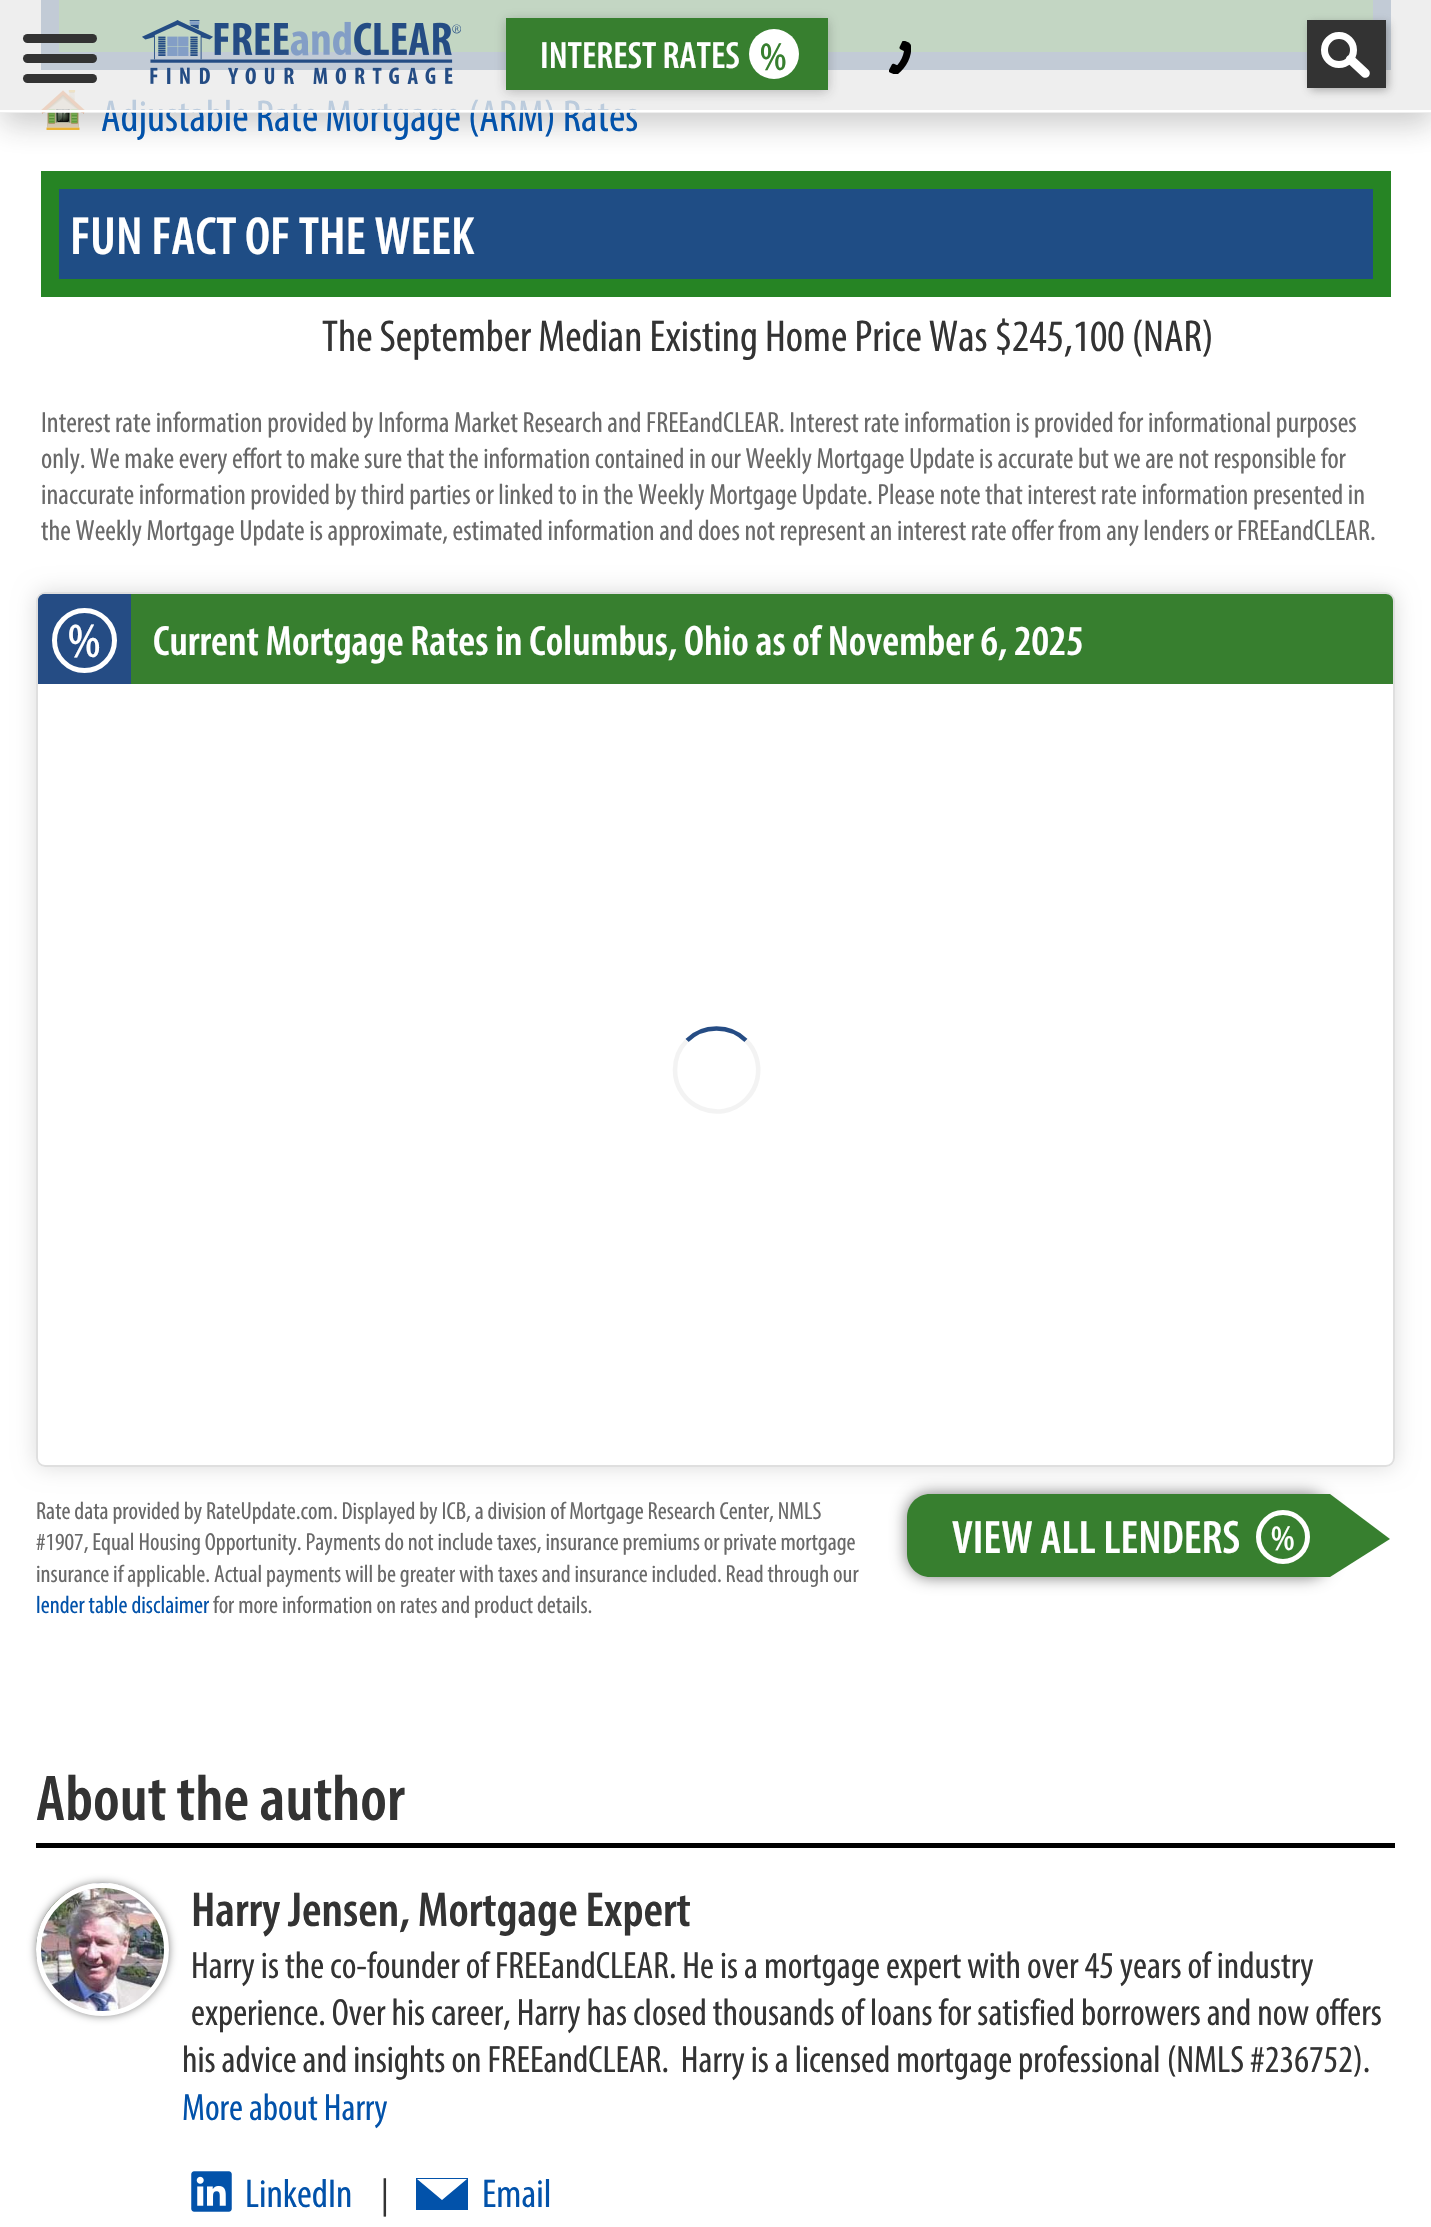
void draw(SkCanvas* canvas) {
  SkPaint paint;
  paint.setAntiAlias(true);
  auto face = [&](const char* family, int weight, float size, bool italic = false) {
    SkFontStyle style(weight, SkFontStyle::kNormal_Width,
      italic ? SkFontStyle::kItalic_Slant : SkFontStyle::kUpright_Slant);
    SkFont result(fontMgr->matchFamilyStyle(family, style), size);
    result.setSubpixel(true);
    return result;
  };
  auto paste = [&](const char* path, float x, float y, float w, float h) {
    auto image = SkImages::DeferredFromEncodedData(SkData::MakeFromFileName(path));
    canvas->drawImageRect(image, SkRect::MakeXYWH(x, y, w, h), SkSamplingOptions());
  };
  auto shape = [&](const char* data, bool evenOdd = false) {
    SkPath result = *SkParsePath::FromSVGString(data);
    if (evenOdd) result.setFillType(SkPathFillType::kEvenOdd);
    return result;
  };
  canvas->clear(0xffffffff);
  paint.setColor(0xff1f4d85);
  canvas->drawRect(SkRect::MakeXYWH(41, 0, 1350, 70), paint);
  paint.setColor(0xff268424);
  canvas->drawRect(SkRect::MakeXYWH(59, 0, 1314, 52), paint);
  paste("img/3.png", 41, 90, 44, 40);
  canvas->save();
  canvas->clipPath(shape("M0 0H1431V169H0ZM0 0H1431V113H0Z", true), true);
  paint.setColor(0x3d232323);
  paint.setMaskFilter(SkMaskFilter::MakeBlur(kNormal_SkBlurStyle, 14.5f));
  canvas->drawRect(SkRect::MakeXYWH(2, 11, 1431, 113), paint);
  paint.setMaskFilter(nullptr);
  canvas->restore();
  paint.setColor(0xff268424);
  canvas->drawRect(SkRect::MakeXYWH(41, 171, 1350, 126), paint);
  paint.setColor(0xff1f4d85);
  canvas->drawRect(SkRect::MakeXYWH(59, 189, 1314, 90), paint);
  canvas->save();
  canvas->clipPath(shape("M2 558H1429V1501H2ZM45 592H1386C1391 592 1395 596 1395 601V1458C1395 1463 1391 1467 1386 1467H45C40 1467 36 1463 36 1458V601C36 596 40 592 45 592Z", true), true);
  paint.setColor(0x24000000);
  paint.setMaskFilter(SkMaskFilter::MakeBlur(kNormal_SkBlurStyle, 11));
  canvas->drawRoundRect(SkRect::MakeXYWH(36, 592, 1359, 875), 9, 9, paint);
  paint.setMaskFilter(nullptr);
  canvas->restore();
  paint.setStroke(true);
  paint.setStrokeWidth(2);
  paint.setColor(0xffdfdfdf);
  canvas->drawRoundRect(SkRect::MakeXYWH(37, 593, 1357, 873), 8, 8, paint);
  paint.setStroke(false);
  paint.setColor(0xff254c84);
  canvas->drawPath(shape("M45 594H1382V684H38V601C38 597 41 594 45 594Z"), paint);
  canvas->drawPath(shape("M45 594H128V684H38V601C38 597 41 594 45 594Z"), paint);
  paint.setStroke(true);
  paint.setStrokeWidth(5);
  paint.setColor(0xffffffff);
  canvas->drawCircle(84.5f, 640.5f, 30, paint);
  paint.setStroke(false);
  paint.setColor(0xff377f2f);
  canvas->drawPath(shape("M131 594H1386C1390 594 1393 597 1393 601V684H131Z"), paint);
  paint.setStroke(true);
  paint.setStrokeWidth(4.5f);
  paint.setColor(0xff254c84);
  canvas->drawPath(shape("M687 1040.5C703 1024.5 730 1024.5 746 1040.5"), paint);
  paint.setColor(0xfff3f3f3);
  canvas->drawPath(shape("M746 1040.5C756 1050 760 1064.5 757.5 1078C756 1086 752 1093.5 746 1099.5C720 1125.5 675 1106.5 675 1070C675 1059 679.5 1048 687 1040.5"), paint);
  paint.setStroke(false);
  paint.setColor(0x87000000);
  paint.setMaskFilter(SkMaskFilter::MakeBlur(kNormal_SkBlurStyle, 8));
  canvas->drawRoundRect(SkRect::MakeXYWH(907, 1494, 423, 83), 23, 23, paint);
  paint.setMaskFilter(nullptr);
  paint.setColor(0xff377f2f);
  canvas->drawPath(shape("M930 1494H1330V1577H930C917.5 1577 907 1566.5 907 1554V1517C907 1504.5 917.5 1494 930 1494Z"), paint);
  paint.setStroke(true);
  paint.setStrokeWidth(5);
  paint.setColor(0xffffffff);
  canvas->drawCircle(1283, 1537, 24.5f, paint);
  paint.setStroke(false);
  paint.setColor(0xff377f2f);
  canvas->drawPath(shape("M1330 1577V1494L1390 1539Z"), paint);
  paint.setColor(0xff000000);
  canvas->drawRect(SkRect::MakeXYWH(36, 1843, 1359, 5), paint);
  paint.setColor(0x78000000);
  paint.setMaskFilter(SkMaskFilter::MakeBlur(kNormal_SkBlurStyle, 4.5f));
  canvas->drawRoundRect(SkRect::MakeXYWH(36, 1883, 133, 133), 66.5f, 66.5f, paint);
  paint.setMaskFilter(nullptr);
  paste("img/4.png", 36, 1882, 133, 134);
  paint.setStroke(true);
  paint.setColor(0xffffffff);
  canvas->drawCircle(102.5f, 1949.5f, 64, paint);
  paste("img/5.png", 191, 2171, 41, 41);
  paint.setStroke(false);
  paint.setColor(0xff0252aa);
  canvas->drawPath(shape("M416 2178V2210H468V2178ZM442 2200L417 2179H467Z"), paint);
  auto f0 = face("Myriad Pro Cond", 400, 45);
  canvas->drawString("Adjustable Rate Mortgage (ARM) Rates", 101, 131, f0, paint);
  paint.setColor(0xcceaeaea);
  canvas->drawRect(SkRect::MakeXYWH(0, 0, 1431, 113), paint);
  paint.setColor(0xff333333);
  canvas->drawRoundRect(SkRect::MakeXYWH(23, 74, 74, 9), 4.5f, 4.5f, paint);
  canvas->drawRoundRect(SkRect::MakeXYWH(23, 54, 74, 9), 4.5f, 4.5f, paint);
  canvas->drawRoundRect(SkRect::MakeXYWH(23, 34, 74, 9), 4.5f, 4.5f, paint);
  paint.setColor(0x805b5b5b);
  paint.setMaskFilter(SkMaskFilter::MakeBlur(kNormal_SkBlurStyle, 4.5f));
  canvas->drawRect(SkRect::MakeXYWH(1310, 23, 78, 67), paint);
  paint.setMaskFilter(nullptr);
  paint.setColor(0xff333333);
  canvas->drawRect(SkRect::MakeXYWH(1307, 20, 79, 68), paint);
  paint.setStroke(true);
  paint.setStrokeWidth(7);
  paint.setColor(0xffffffff);
  canvas->drawCircle(1339, 50, 14.5f, paint);
  paint.setStroke(false);
  canvas->drawPath(shape("M1347 56.5C1349 54.5 1351.5 54.5 1353.5 56L1368.5 70C1370 71.5 1370.5 74.5 1368.5 76.5C1367 78 1364 78.5 1362 76.5L1347.5 63C1345.5 61 1345.5 58 1347 56.5Z"), paint);
  paste("img/2.png", 889, 41, 22, 33);
  paint.setColor(0x42232323);
  paint.setMaskFilter(SkMaskFilter::MakeBlur(kNormal_SkBlurStyle, 5.5f));
  canvas->drawRect(SkRect::MakeXYWH(506, 20, 322, 72), paint);
  paint.setMaskFilter(nullptr);
  paint.setColor(0xff377f2f);
  canvas->drawRect(SkRect::MakeXYWH(506, 18, 322, 72), paint);
  paint.setColor(0xffffffff);
  canvas->drawCircle(774, 54, 25, paint);
  auto f1 = face("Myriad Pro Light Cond", 600, 40.5f);
  paint.setColor(0xff377f2f);
  canvas->drawString("%", 760, 70, f1, paint);
  auto f2 = face("Myriad Pro Light Cond", 600, 38.25f);
  paint.setColor(0xffffffff);
  canvas->drawString("INTEREST RATES", 540, 68, f2, paint);
  paste("img/1.png", 142, 20, 319, 65);
  canvas->drawRect(SkRect::MakeXYWH(0, 110, 1431, 2), paint);
  auto f3 = face("Myriad Pro Light Cond", 600, 54);
  canvas->drawString("FUN FACT OF THE WEEK", 70, 254, f3, paint);
  paint.setColor(0xff333333);
  canvas->drawString("The September Median Existing Home Price Was $245,100 (NAR)", 322, 351, f0, paint);
  auto f4 = face("Myriad Pro Cond", 400, 29.25f);
  paint.setColor(0xff696969);
  {
    const struct { const char* s; float x, y; } items[] = {
      {"Interest rate information provided by Informa Market Research and FREEandCLEAR. Interest rate information is provided for informational purposes", 41, 432},
      {"only. We make every effort to make sure that the information contained in our Weekly Mortgage Update is accurate but we are not responsible for", 41, 468},
      {"inaccurate information provided by third parties or linked to in the Weekly Mortgage Update. Please note that interest rate information presented in", 41, 504},
      {"the Weekly Mortgage Update is approximate, estimated information and does not represent an interest rate offer from any lenders or FREEandCLEAR.", 41, 540},
    };
    for (auto [s, x, y] : items) {
      canvas->drawString(s, x, y, f4, paint);
    }
  }
  auto f5 = face("Myriad Pro Light Cond", 600, 49.5f);
  paint.setColor(0xffffffff);
  canvas->drawString("%", 68, 657, f5, paint);
  auto f6 = face("Myriad Pro Light Cond", 600, 42.75f);
  canvas->drawString("Current Mortgage Rates in Columbus, Ohio as of November 6, 2025", 153, 655, f6, paint);
  auto f7 = face("Myriad Pro Cond", 400, 24.75f);
  paint.setColor(0xff696969);
  {
    const struct { const char* s; float x, y; } items[] = {
      {"Rate data provided by RateUpdate.com. Displayed by ICB, a division of Mortgage Research Center, NMLS", 36, 1519},
      {"#1907, Equal Housing Opportunity. Payments do not include taxes, insurance premiums or private mortgage", 36, 1550},
      {"insurance if applicable. Actual payments will be greater with taxes and insurance included. Read through our", 36, 1582},
    };
    for (auto [s, x, y] : items) {
      canvas->drawString(s, x, y, f7, paint);
    }
  }
  paint.setColor(0xff0252aa);
  canvas->drawString("lender table disclaimer", 36, 1613, f7, paint);
  paint.setColor(0xff696969);
  canvas->drawString("for more information on rates and product details.", 213, 1613, f7, paint);
  auto f8 = face("Myriad Pro Light Cond", 600, 47.25f);
  paint.setColor(0xffffffff);
  canvas->drawString("VIEW ALL LENDERS", 952, 1553, f8, paint);
  auto f9 = face("Myriad Pro Light Cond", 600, 36);
  canvas->drawString("%", 1271, 1550, f9, paint);
  auto f10 = face("Myriad Pro Light Cond", 600, 65.25f);
  paint.setColor(0xff333333);
  canvas->drawString("About the author", 36, 1820, f10, paint);
  canvas->drawString("Harry Jensen, Mortgage Expert", 191, 1926, f5, paint);
  auto f11 = face("Myriad Pro Cond", 400, 38.25f);
  {
    const struct { const char* s; float x, y; } items[] = {
      {"Harry is the co-founder of FREEandCLEAR. He is a mortgage expert with over 45 years of industry", 191, 1978},
      {"experience. Over his career, Harry has closed thousands of loans for satisfied borrowers and now offers", 191, 2025},
      {"his advice and insights on FREEandCLEAR.  Harry is a licensed mortgage professional (NMLS #236752).", 182, 2072},
    };
    for (auto [s, x, y] : items) {
      canvas->drawString(s, x, y, f11, paint);
    }
  }
  paint.setColor(0xff0252aa);
  canvas->drawString("More about Harry", 182, 2120, f11, paint);
  auto f12 = face("Myriad Pro Cond", 400, 40.5f);
  canvas->drawString("LinkedIn", 245, 2207, f12, paint);
  paint.setColor(0xff333333);
  canvas->drawString("|", 381, 2207, f11, paint);
  paint.setColor(0xff0252aa);
  canvas->drawString("Email", 482, 2207, f12, paint);
}
